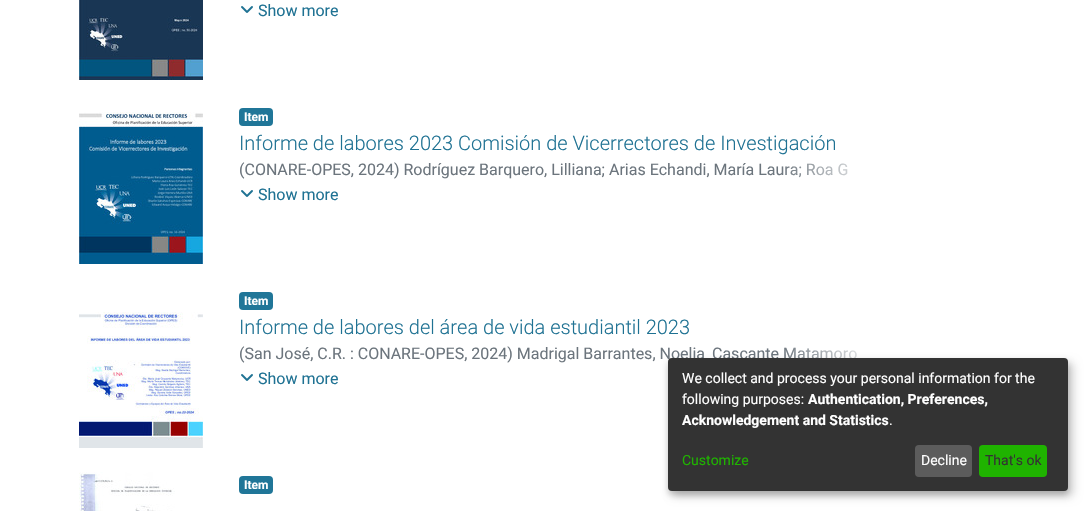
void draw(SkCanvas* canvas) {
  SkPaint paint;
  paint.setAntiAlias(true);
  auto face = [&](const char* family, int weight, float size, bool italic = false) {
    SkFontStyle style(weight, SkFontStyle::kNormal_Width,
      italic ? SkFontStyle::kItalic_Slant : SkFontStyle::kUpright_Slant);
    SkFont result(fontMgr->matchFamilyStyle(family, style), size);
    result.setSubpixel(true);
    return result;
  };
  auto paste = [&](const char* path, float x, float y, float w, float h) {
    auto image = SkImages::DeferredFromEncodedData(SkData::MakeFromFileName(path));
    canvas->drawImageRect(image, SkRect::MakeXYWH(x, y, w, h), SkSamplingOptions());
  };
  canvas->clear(0xffffffff);
  paste("img/1.png", 79, 0, 124, 80);
  paste("img/2.png", 241, 6, 12, 7);
  paste("img/3.png", 79, 112, 124, 152);
  paint.setColor(0xff207698);
  canvas->drawRoundRect(SkRect::MakeXYWH(239, 108, 34, 18), 4, 4, paint);
  paste("img/2.png", 241, 190, 12, 7);
  paste("img/4.png", 79, 312, 124, 136);
  canvas->drawRoundRect(SkRect::MakeXYWH(239, 292, 34, 18), 4, 4, paint);
  paste("img/2.png", 241, 374, 12, 7);
  paste("img/5.png", 79, 472, 96, 39);
  canvas->drawRoundRect(SkRect::MakeXYWH(239, 476, 34, 18), 4, 4, paint);
  auto f0 = face("Roboto", 400, 16);
  paint.setColor(0xff1f7293);
  canvas->drawString("Show more", 258, 16, f0, paint);
  auto f1 = face("Roboto", 700, 12);
  paint.setColor(0xffffffff);
  canvas->drawString("Item", 244, 121, f1, paint);
  auto f2 = face("Roboto", 300, 20);
  paint.setColor(0xff1f7293);
  canvas->drawString("Informe de labores 2023 Comisión de Vicerrectores de Investigación", 239, 150, f2, paint);
  paint.setColor(0xff6c757d);
  canvas->drawString("(CONARE-OPES, 2024) Rodríguez Barquero, Lilliana; Arias Echandi, María Laura; Roa G", 239, 175, f0, paint);
  {
    const SkColor colors[] = {0x00ffffff, 0xffffffff};
    const float stops[] = {0, 0.7f};
    const SkPoint ends[] = {{779, 170}, {929, 170}};
    paint.setShader(SkGradientShader::MakeLinear(ends, colors, stops, 2, SkTileMode::kClamp));
    paint.setAlpha(255);
  }
  canvas->drawRect(SkRect::MakeXYWH(781, 163, 67, 15), paint);
  paint.setShader(nullptr);
  paint.setColor(0xff1f7293);
  canvas->drawString("Show more", 258, 200, f0, paint);
  paint.setColor(0xffffffff);
  canvas->drawString("Item", 244, 305, f1, paint);
  paint.setColor(0xff1f7293);
  canvas->drawString("Informe de labores del área de vida estudiantil 2023", 239, 334, f2, paint);
  paint.setColor(0xff6c757d);
  canvas->drawString("(San José, C.R. : CONARE-OPES, 2024) Madrigal Barrantes, Noelia", 239, 359, f0, paint);
  canvas->drawString("Cascante Matamoro", 712, 359, f0, paint);
  {
    const SkColor colors[] = {0x00ffffff, 0xffffffff};
    const float stops[] = {0, 0.7f};
    const SkPoint ends[] = {{779, 354}, {929, 354}};
    paint.setShader(SkGradientShader::MakeLinear(ends, colors, stops, 2, SkTileMode::kClamp));
    paint.setAlpha(255);
  }
  canvas->drawRect(SkRect::MakeXYWH(785, 347, 72, 11), paint);
  paint.setShader(nullptr);
  paint.setColor(0xff1f7293);
  canvas->drawString("Show more", 258, 384, f0, paint);
  paint.setColor(0xffffffff);
  canvas->drawString("Item", 244, 489, f1, paint);
  paint.setColor(0x30000000);
  paint.setMaskFilter(SkMaskFilter::MakeBlur(kNormal_SkBlurStyle, 5));
  canvas->drawRoundRect(SkRect::MakeXYWH(673, 363, 400, 133), 4, 4, paint);
  paint.setMaskFilter(nullptr);
  paint.setColor(0x33000000);
  paint.setMaskFilter(SkMaskFilter::MakeBlur(kNormal_SkBlurStyle, 3));
  canvas->drawRoundRect(SkRect::MakeXYWH(668, 362, 400, 133), 4, 4, paint);
  paint.setMaskFilter(nullptr);
  paint.setColor(0xff333333);
  canvas->drawRoundRect(SkRect::MakeXYWH(668, 358, 400, 133), 4, 4, paint);
  auto f3 = face("Roboto", 400, 14);
  paint.setColor(0xffffffff);
  canvas->drawString("We collect and process your personal information for the", 682, 383, f3, paint);
  canvas->drawString("following purposes:", 682, 404, f3, paint);
  auto f4 = face("Roboto", 700, 14);
  canvas->drawString("Authentication, Preferences,", 808, 404, f4, paint);
  canvas->drawString("Acknowledgement and Statistics", 682, 425, f4, paint);
  canvas->drawString(".", 889, 425, f3, paint);
  paint.setColor(0xff1fb300);
  canvas->drawString("Customize", 682, 465, f3, paint);
  paint.setColor(0xff5c5c5c);
  canvas->drawRoundRect(SkRect::MakeXYWH(915, 445, 57, 32), 4, 4, paint);
  paint.setColor(0xffffffff);
  canvas->drawString("Decline", 921, 465, f3, paint);
  paint.setColor(0xff1fb300);
  canvas->drawRoundRect(SkRect::MakeXYWH(979, 445, 68, 32), 4, 4, paint);
  paint.setColor(0xff333333);
  canvas->drawString("That's ok", 985, 465, f3, paint);
}
